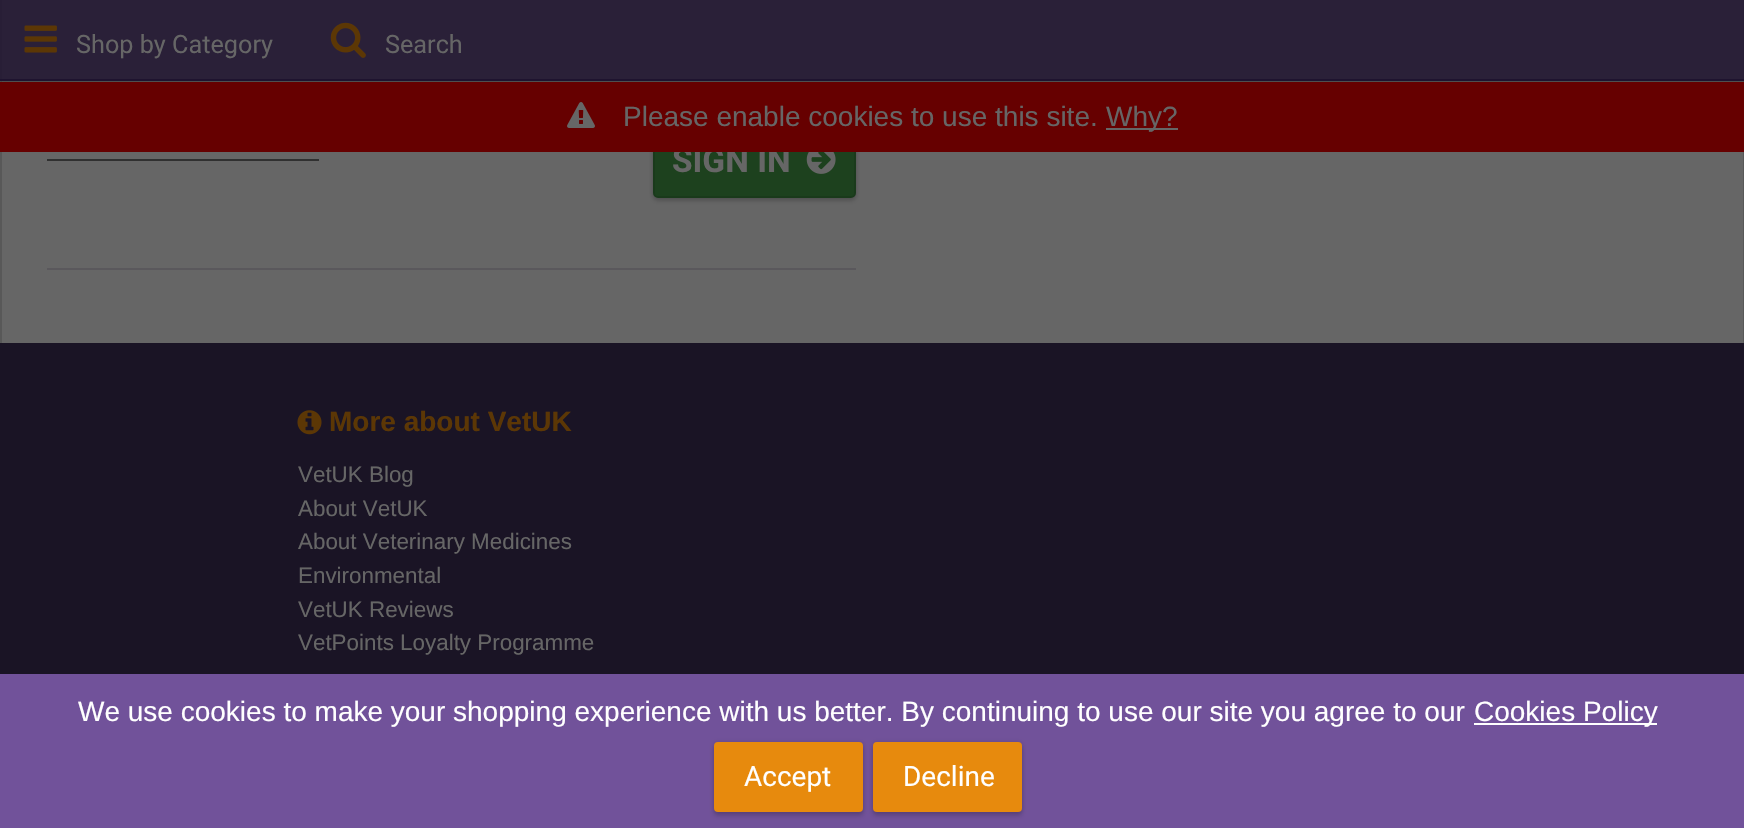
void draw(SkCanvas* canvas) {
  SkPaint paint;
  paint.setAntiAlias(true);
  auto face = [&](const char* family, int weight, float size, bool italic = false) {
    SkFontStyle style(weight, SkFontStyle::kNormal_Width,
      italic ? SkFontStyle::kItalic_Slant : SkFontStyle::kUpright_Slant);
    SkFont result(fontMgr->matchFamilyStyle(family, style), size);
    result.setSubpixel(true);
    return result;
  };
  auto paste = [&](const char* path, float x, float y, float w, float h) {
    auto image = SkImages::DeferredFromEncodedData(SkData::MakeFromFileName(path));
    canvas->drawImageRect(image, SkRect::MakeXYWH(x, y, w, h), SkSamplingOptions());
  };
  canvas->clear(0xff585858);
  paint.setColor(0xff666666);
  canvas->drawRect(SkRect::MakeXYWH(2, 0, 1741, 343), paint);
  canvas->save();
  canvas->clipRect(SkRect::MakeXYWH(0, 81, 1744, 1));
  paint.setColor(0x61000000);
  paint.setMaskFilter(SkMaskFilter::MakeBlur(kNormal_SkBlurStyle, 2));
  canvas->drawRect(SkRect::MakeXYWH(0, 2, 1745, 80), paint);
  paint.setMaskFilter(nullptr);
  canvas->restore();
  paint.setColor(0xd91e132f);
  canvas->drawRect(SkRect::MakeXYWH(0, 0, 1744, 79), paint);
  paint.setColor(0xff1e132f);
  canvas->drawRect(SkRect::MakeXYWH(0, 79, 1744, 2), paint);
  paste("img/1.png", 24, 25, 33, 28);
  paste("img/2.png", 330, 22, 36, 36);
  paint.setColor(0xff5a585c);
  canvas->drawRect(SkRect::MakeXYWH(47, 268, 809, 2), paint);
  paint.setColor(0xff303030);
  canvas->drawRect(SkRect::MakeXYWH(47, 159, 272, 2), paint);
  paint.setColor(0x1f000000);
  paint.setMaskFilter(SkMaskFilter::MakeBlur(kNormal_SkBlurStyle, 2));
  canvas->drawRoundRect(SkRect::MakeXYWH(653, 128, 203, 70), 5, 5, paint);
  paint.setMaskFilter(nullptr);
  paint.setColor(0x29000000);
  paint.setMaskFilter(SkMaskFilter::MakeBlur(kNormal_SkBlurStyle, 2));
  canvas->drawRoundRect(SkRect::MakeXYWH(653, 131, 203, 70), 5, 5, paint);
  paint.setMaskFilter(nullptr);
  paint.setColor(0xff1d411e);
  canvas->drawRoundRect(SkRect::MakeXYWH(654, 129, 201, 68), 4, 4, paint);
  paint.setStroke(true);
  paint.setStrokeWidth(2);
  paint.setColor(0xff1a3a1b);
  canvas->drawRoundRect(SkRect::MakeXYWH(654, 129, 201, 68), 4, 4, paint);
  paste("img/4.png", 806, 152, 30, 22);
  paint.setStroke(false);
  paint.setColor(0xff1a1425);
  canvas->drawRect(SkRect::MakeXYWH(0, 343, 1744, 331), paint);
  paste("img/5.png", 297, 410, 25, 25);
  paint.setColor(0xff71529a);
  canvas->drawRect(SkRect::MakeXYWH(0, 674, 1744, 154), paint);
  paint.setColor(0xffffffff);
  canvas->drawRect(SkRect::MakeXYWH(1474, 723, 183, 2), paint);
  paint.setColor(0x1f000000);
  paint.setMaskFilter(SkMaskFilter::MakeBlur(kNormal_SkBlurStyle, 2));
  canvas->drawRoundRect(SkRect::MakeXYWH(714, 742, 149, 70), 4, 4, paint);
  paint.setMaskFilter(nullptr);
  paint.setColor(0x29000000);
  paint.setMaskFilter(SkMaskFilter::MakeBlur(kNormal_SkBlurStyle, 2));
  canvas->drawRoundRect(SkRect::MakeXYWH(714, 746, 149, 70), 4, 4, paint);
  paint.setMaskFilter(nullptr);
  paint.setColor(0xffe78a0d);
  canvas->drawRoundRect(SkRect::MakeXYWH(714, 742, 149, 70), 4, 4, paint);
  paint.setColor(0x1f000000);
  paint.setMaskFilter(SkMaskFilter::MakeBlur(kNormal_SkBlurStyle, 2));
  canvas->drawRoundRect(SkRect::MakeXYWH(873, 742, 149, 70), 4, 4, paint);
  paint.setMaskFilter(nullptr);
  paint.setColor(0x29000000);
  paint.setMaskFilter(SkMaskFilter::MakeBlur(kNormal_SkBlurStyle, 2));
  canvas->drawRoundRect(SkRect::MakeXYWH(873, 746, 149, 70), 4, 4, paint);
  paint.setMaskFilter(nullptr);
  paint.setColor(0xffe78a0d);
  canvas->drawRoundRect(SkRect::MakeXYWH(873, 742, 149, 70), 4, 4, paint);
  auto f0 = face("Roboto", 400, 25.25f);
  paint.setColor(0xff666666);
  canvas->drawString("Shop by Category", 76, 53, f0, paint);
  canvas->drawString("Search", 385, 53, f0, paint);
  auto f1 = face("Roboto", 700, 33.5f);
  canvas->drawString("SIGN IN", 672, 172, f1, paint);
  paint.setColor(0xff660000);
  canvas->drawRect(SkRect::MakeXYWH(0, 82, 1744, 70), paint);
  paint.setColor(0xff666666);
  canvas->drawRect(SkRect::MakeXYWH(1106, 128, 72, 2), paint);
  auto f2 = face("Liberation Sans", 400, 28);
  canvas->drawString("Why?", 1106, 126, f2, paint);
  canvas->drawString("Please enable cookies to use this site.", 623, 126, f2, paint);
  paste("img/3.png", 567, 102, 28, 26);
  auto f3 = face("Liberation Sans", 700, 28);
  paint.setColor(0xff5c3705);
  canvas->drawString("More about VetUK", 329, 431, f3, paint);
  auto f4 = face("Liberation Sans", 400, 22.4f);
  paint.setColor(0xff666666);
  {
    const struct { const char* s; float x, y; } items[] = {
      {"VetUK Blog", 298, 482},
      {"About VetUK", 298, 516},
      {"About Veterinary Medicines", 298, 549},
      {"Environmental", 298, 583},
      {"VetUK Reviews", 298, 617},
      {"VetPoints Loyalty Programme", 298, 650},
    };
    for (auto [s, x, y] : items) {
      canvas->drawString(s, x, y, f4, paint);
    }
  }
  paint.setColor(0xffffffff);
  canvas->drawString("We use cookies to make your shopping experience with us better. By continuing to use our site you agree to our", 78, 721, f2, paint);
  canvas->drawString("Cookies Policy", 1474, 721, f2, paint);
  auto f5 = face("Roboto", 400, 28);
  canvas->drawString("Accept", 744, 786, f5, paint);
  canvas->drawString("Decline", 903, 786, f5, paint);
}
